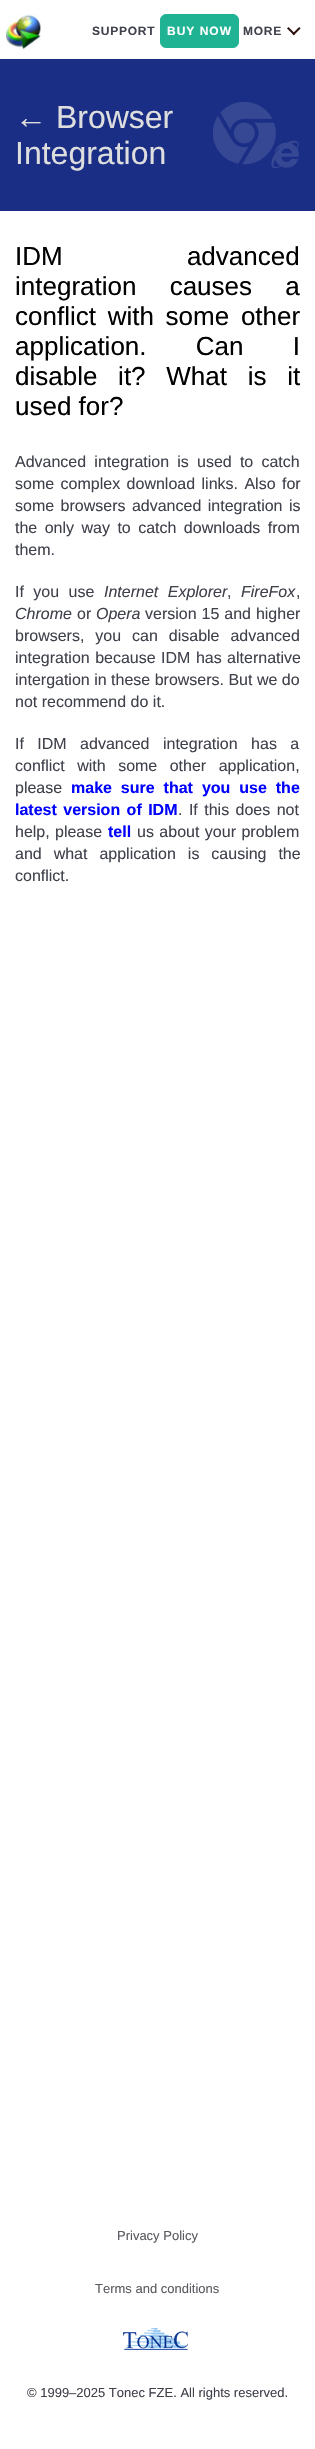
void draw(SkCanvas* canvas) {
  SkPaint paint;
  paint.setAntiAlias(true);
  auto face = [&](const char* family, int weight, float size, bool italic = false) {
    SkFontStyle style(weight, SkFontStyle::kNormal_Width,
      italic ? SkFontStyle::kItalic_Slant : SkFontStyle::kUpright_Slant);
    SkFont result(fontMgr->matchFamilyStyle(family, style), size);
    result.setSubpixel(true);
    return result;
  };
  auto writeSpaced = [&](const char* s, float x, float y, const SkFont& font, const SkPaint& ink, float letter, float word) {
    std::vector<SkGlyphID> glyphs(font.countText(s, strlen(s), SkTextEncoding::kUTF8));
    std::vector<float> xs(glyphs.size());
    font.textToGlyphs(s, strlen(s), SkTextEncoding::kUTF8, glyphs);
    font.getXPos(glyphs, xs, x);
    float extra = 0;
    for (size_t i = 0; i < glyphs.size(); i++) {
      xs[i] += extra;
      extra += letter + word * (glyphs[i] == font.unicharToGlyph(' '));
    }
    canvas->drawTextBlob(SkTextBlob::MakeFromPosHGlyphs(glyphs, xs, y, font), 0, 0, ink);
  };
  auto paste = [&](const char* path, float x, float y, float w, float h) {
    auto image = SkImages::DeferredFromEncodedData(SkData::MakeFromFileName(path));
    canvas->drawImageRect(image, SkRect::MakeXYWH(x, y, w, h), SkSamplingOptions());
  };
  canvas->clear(0xffffffff);
  paste("img/1.png", 6, 14, 35, 36);
  paint.setColor(0xff1fb393);
  canvas->drawRoundRect(SkRect::MakeXYWH(160.5f, 14.5f, 78, 33), 5.5f, 5.5f, paint);
  paint.setStroke(true);
  paint.setStrokeWidth(1);
  canvas->drawRoundRect(SkRect::MakeXYWH(160.5f, 14.5f, 78, 33), 5.5f, 5.5f, paint);
  paste("img/2.png", 287, 27, 14, 9);
  paint.setStroke(false);
  paint.setColor(0xff1a2e85);
  canvas->drawRect(SkRect::MakeXYWH(0, 59, 315, 152), paint);
  paste("img/3.png", 213, 102, 86, 66);
  paste("img/4.png", 123, 2328, 65, 22);
  auto f0 = face("Liberation Sans", 700, 12);
  paint.setColor(0xff3f414b);
  writeSpaced("SUPPORT", 92, 35, f0, paint, 0.75f, 0);
  paint.setColor(0xffffffff);
  writeSpaced("BUY NOW", 167, 35, f0, paint, 1, 0);
  paint.setColor(0xff3f414b);
  writeSpaced("MORE", 243, 35, f0, paint, 0.75f, 0);
  auto f1 = face("Liberation Sans", 400, 32);
  paint.setColor(0xffdedede);
  canvas->drawString("← Browser", 15, 128, f1, paint);
  canvas->drawString("Integration", 15, 164, f1, paint);
  auto f2 = face("Liberation Sans", 400, 26);
  paint.setColor(0xff000000);
  writeSpaced("IDM advanced", 15, 265, f2, paint, 0, 117);
  writeSpaced("integration causes a", 15, 295, f2, paint, 0, 26);
  writeSpaced("conflict with some other", 15, 325, f2, paint, 0, 4.5f);
  writeSpaced("application. Can I", 15, 355, f2, paint, 0, 42);
  writeSpaced("disable it? What is it", 15, 385, f2, paint, 0, 13.5f);
  canvas->drawString("used for?", 15, 415, f2, paint);
  auto f3 = face("Liberation Sans", 400, 16);
  paint.setColor(0xff3f414b);
  writeSpaced("Advanced integration is used to catch", 15, 467, f3, paint, 0, 3.75f);
  writeSpaced("some complex download links. Also for", 15, 489, f3, paint, 0, 2);
  writeSpaced("some browsers advanced integration is", 15, 511, f3, paint, 0, 2);
  writeSpaced("the only way to catch downloads from", 15, 533, f3, paint, 0, 3);
  canvas->drawString("them.", 15, 555, f3, paint);
  writeSpaced("If you use", 15, 597, f3, paint, 0, 5);
  auto f4 = face("Liberation Sans", 400, 16, true);
  writeSpaced("Internet Explorer", 104, 597, f4, paint, 0, 5);
  canvas->drawString(",", 227, 597, f3, paint);
  canvas->drawString("FireFox", 241, 597, f4, paint);
  canvas->drawString(",", 296, 597, f3, paint);
  canvas->drawString("Chrome", 15, 619, f4, paint);
  canvas->drawString("or", 77, 619, f3, paint);
  canvas->drawString("Opera", 96, 619, f4, paint);
  writeSpaced("version 15 and higher", 145, 619, f3, paint, 0, 0.5f);
  writeSpaced("browsers, you can disable advanced", 15, 641, f3, paint, 0, 6.5f);
  writeSpaced("integration because IDM has alternative", 15, 663, f3, paint, 0, 1);
  canvas->drawString("intergation in these browsers. But we do", 15, 685, f3, paint);
  canvas->drawString("not recommend do it.", 15, 707, f3, paint);
  writeSpaced("If IDM advanced integration has a", 15, 749, f3, paint, 0, 9);
  writeSpaced("conflict with some other application,", 15, 771, f3, paint, 0, 8);
  canvas->drawString("please", 15, 793, f3, paint);
  auto f5 = face("Liberation Sans", 700, 16);
  paint.setColor(0xff0000ff);
  writeSpaced("make sure that you use the", 71, 793, f5, paint, 0, 4.5f);
  writeSpaced("latest version of IDM", 15, 815, f5, paint, 0, 2);
  paint.setColor(0xff3f414b);
  writeSpaced(". If this does not", 178, 815, f3, paint, 0, 2);
  canvas->drawString("help,", 15, 837, f3, paint);
  canvas->drawString("please", 55, 837, f3, paint);
  paint.setColor(0xff0000ff);
  canvas->drawString("tell", 108, 837, f5, paint);
  paint.setColor(0xff3f414b);
  writeSpaced("us about your problem", 137, 837, f3, paint, 0, 1);
  writeSpaced("and what application is causing the", 15, 859, f3, paint, 0, 7.5f);
  canvas->drawString("conflict.", 15, 881, f3, paint);
  auto f6 = face("Liberation Sans", 400, 13);
  paint.setColor(0xff5a5b61);
  canvas->drawString("Privacy Policy", 117, 2240, f6, paint);
  canvas->drawString("Terms and conditions", 95, 2293, f6, paint);
  paint.setColor(0xff3f414b);
  canvas->drawString("© 1999–2025 Tonec FZE. All rights reserved.", 27, 2397, f6, paint);
}
